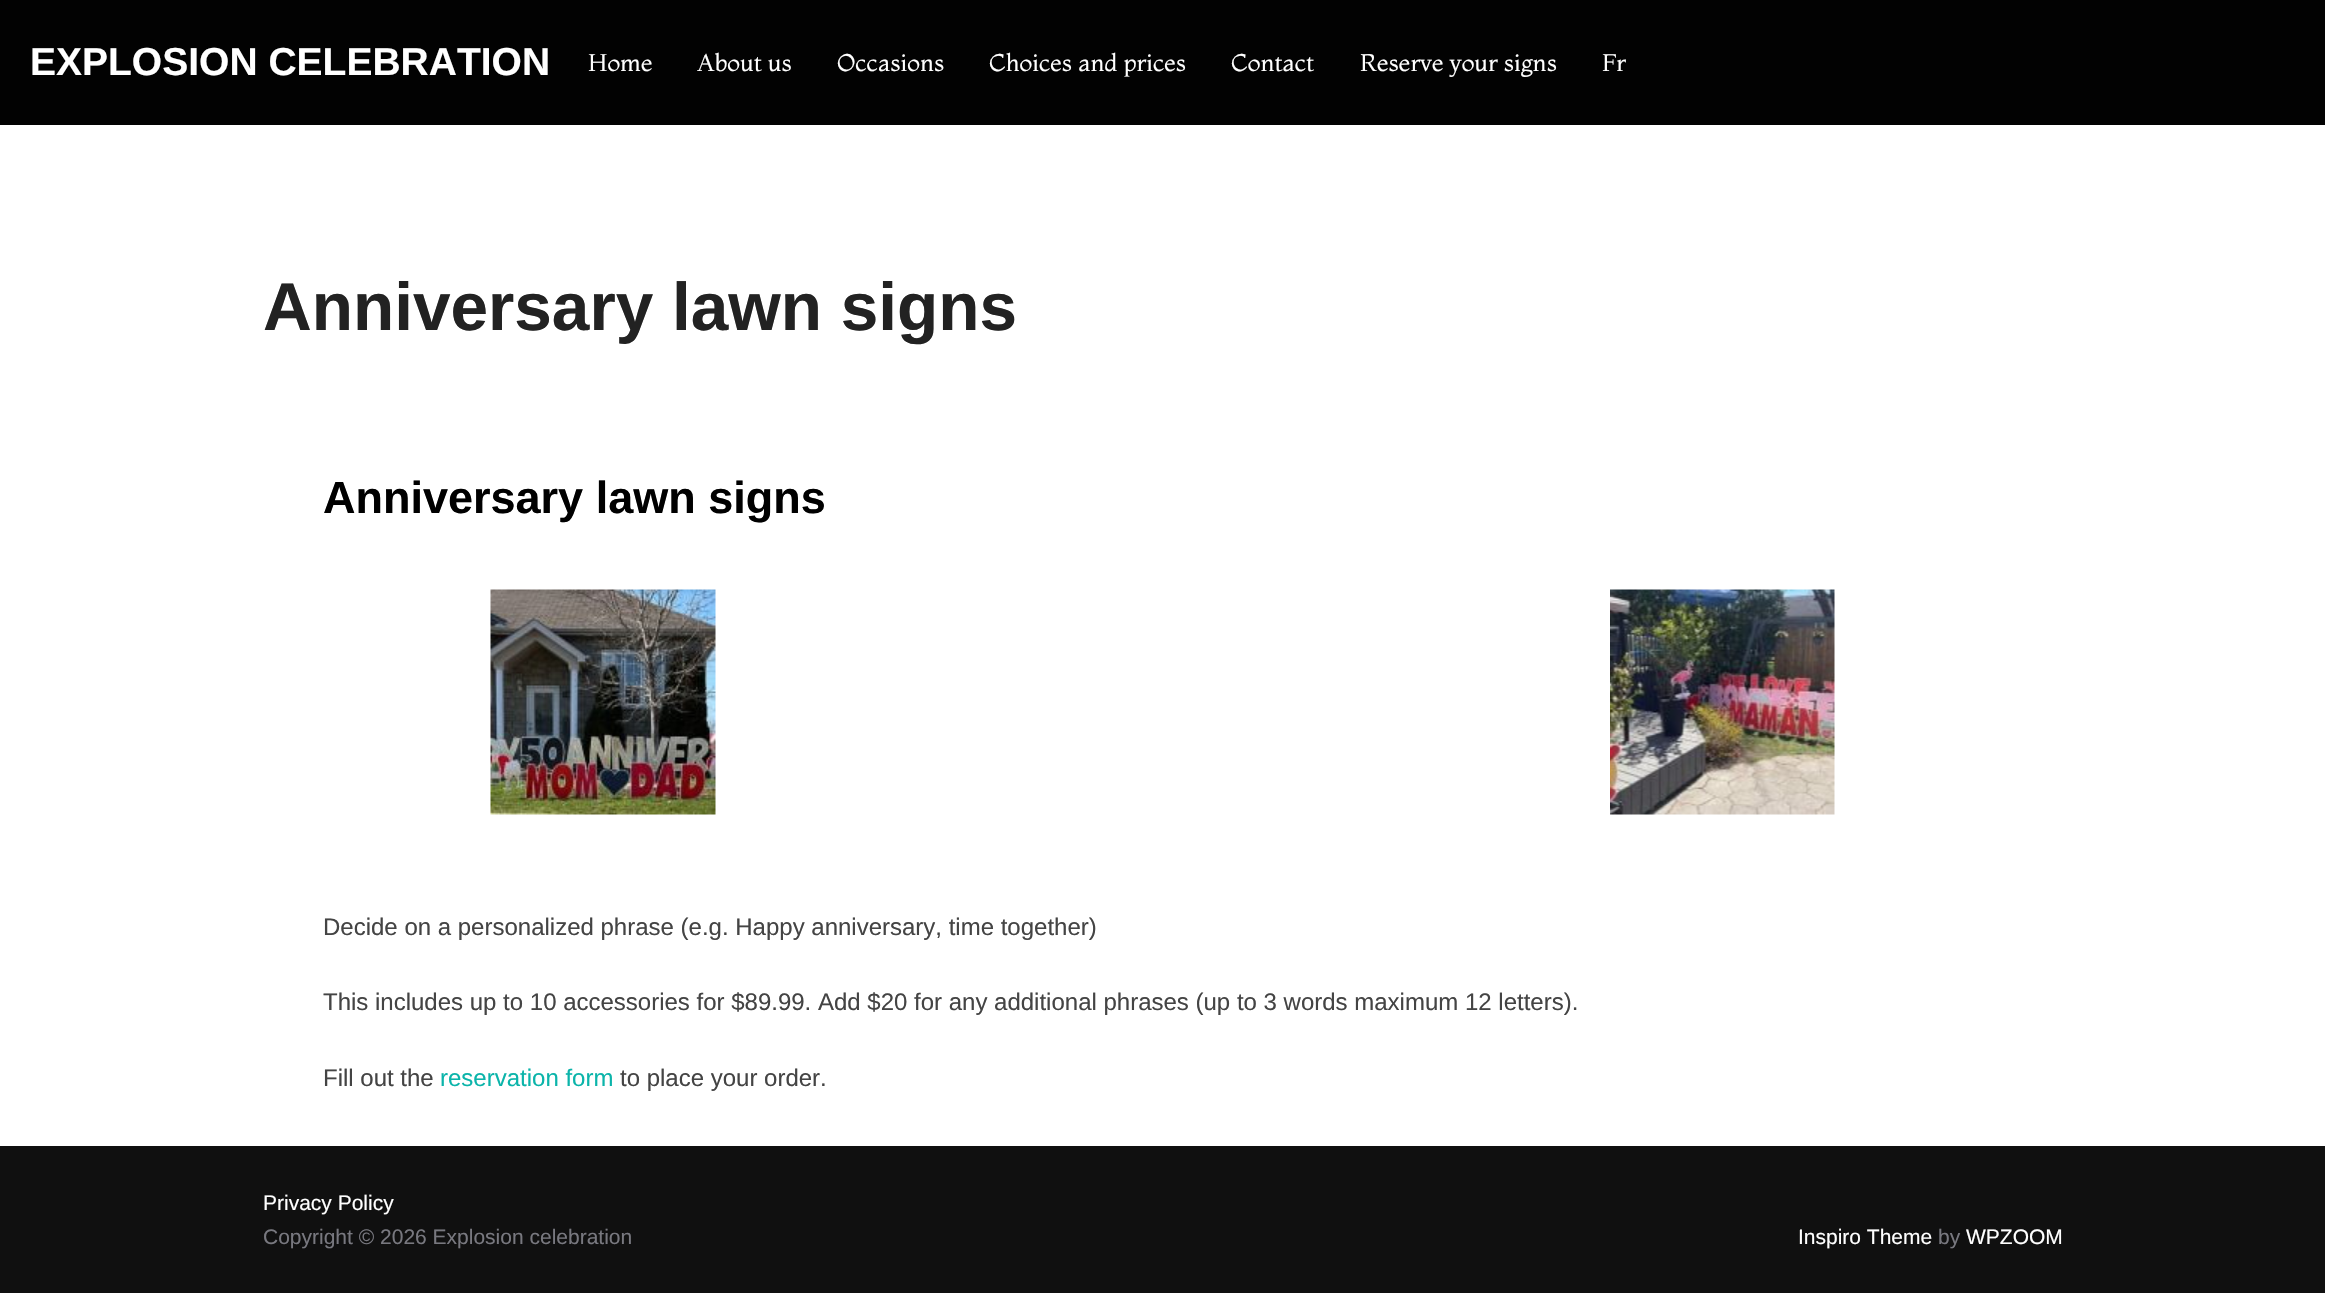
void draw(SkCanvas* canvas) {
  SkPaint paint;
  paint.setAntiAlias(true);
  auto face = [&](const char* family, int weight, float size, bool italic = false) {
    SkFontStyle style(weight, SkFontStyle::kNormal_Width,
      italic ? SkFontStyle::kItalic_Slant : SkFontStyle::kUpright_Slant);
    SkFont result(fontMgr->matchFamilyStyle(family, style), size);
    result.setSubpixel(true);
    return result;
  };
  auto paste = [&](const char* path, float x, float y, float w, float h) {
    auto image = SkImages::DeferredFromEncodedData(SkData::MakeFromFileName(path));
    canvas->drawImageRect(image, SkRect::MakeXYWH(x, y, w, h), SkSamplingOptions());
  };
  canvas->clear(0xffffffff);
  paint.setColor(0xff020202);
  canvas->drawRect(SkRect::MakeXYWH(0, 0, 2325, 125), paint);
  paste("img/1.png", 490, 589, 226, 226);
  paste("img/2.png", 1610, 589, 225, 226);
  paint.setColor(0xff101010);
  canvas->drawRect(SkRect::MakeXYWH(0, 1146, 2325, 147), paint);
  auto f0 = face("Liberation Sans", 700, 39);
  paint.setColor(0xffffffff);
  canvas->drawString("EXPLOSION CELEBRATION", 30, 75, f0, paint);
  auto f1 = face("Montaga", 400, 24);
  {
    const struct { const char* s; float x, y; } items[] = {
      {"Home", 588, 71},
      {"About us", 697, 71},
      {"Occasions", 837, 71},
      {"Choices and prices", 989, 71},
      {"Contact", 1231, 71},
      {"Reserve your signs", 1360, 71},
      {"Fr", 1602, 71},
    };
    for (auto [s, x, y] : items) {
      canvas->drawString(s, x, y, f1, paint);
    }
  }
  auto f2 = face("Liberation Sans", 700, 67.5f);
  paint.setColor(0xff222222);
  canvas->drawString("Anniversary lawn signs", 263, 330, f2, paint);
  auto f3 = face("Liberation Sans", 700, 45);
  paint.setColor(0xff000000);
  canvas->drawString("Anniversary lawn signs", 323, 513, f3, paint);
  auto f4 = face("Liberation Sans", 400, 24);
  paint.setColor(0xff444444);
  {
    const struct { const char* s; float x, y; } items[] = {
      {"Decide on a personalized phrase (e.g. Happy anniversary, time together)", 323, 935},
      {"This includes up to 10 accessories for $89.99. Add $20 for any additional phrases (up to 3 words maximum 12 letters).", 323, 1010},
      {"Fill out the", 323, 1086},
    };
    for (auto [s, x, y] : items) {
      canvas->drawString(s, x, y, f4, paint);
    }
  }
  paint.setColor(0xff0bb4aa);
  canvas->drawString("reservation form", 440, 1086, f4, paint);
  paint.setColor(0xff444444);
  canvas->drawString("to place your order.", 620, 1086, f4, paint);
  auto f5 = face("Liberation Sans", 400, 21);
  paint.setColor(0xffffffff);
  canvas->drawString("Privacy Policy", 263, 1210, f5, paint);
  paint.setColor(0xff78787f);
  canvas->drawString("Copyright © 2026 Explosion celebration", 263, 1244, f5, paint);
  paint.setColor(0xffffffff);
  canvas->drawString("Inspiro Theme", 1798, 1244, f5, paint);
  paint.setColor(0xff78787f);
  canvas->drawString("by", 1938, 1244, f5, paint);
  paint.setColor(0xffffffff);
  canvas->drawString("WPZOOM", 1966, 1244, f5, paint);
}
